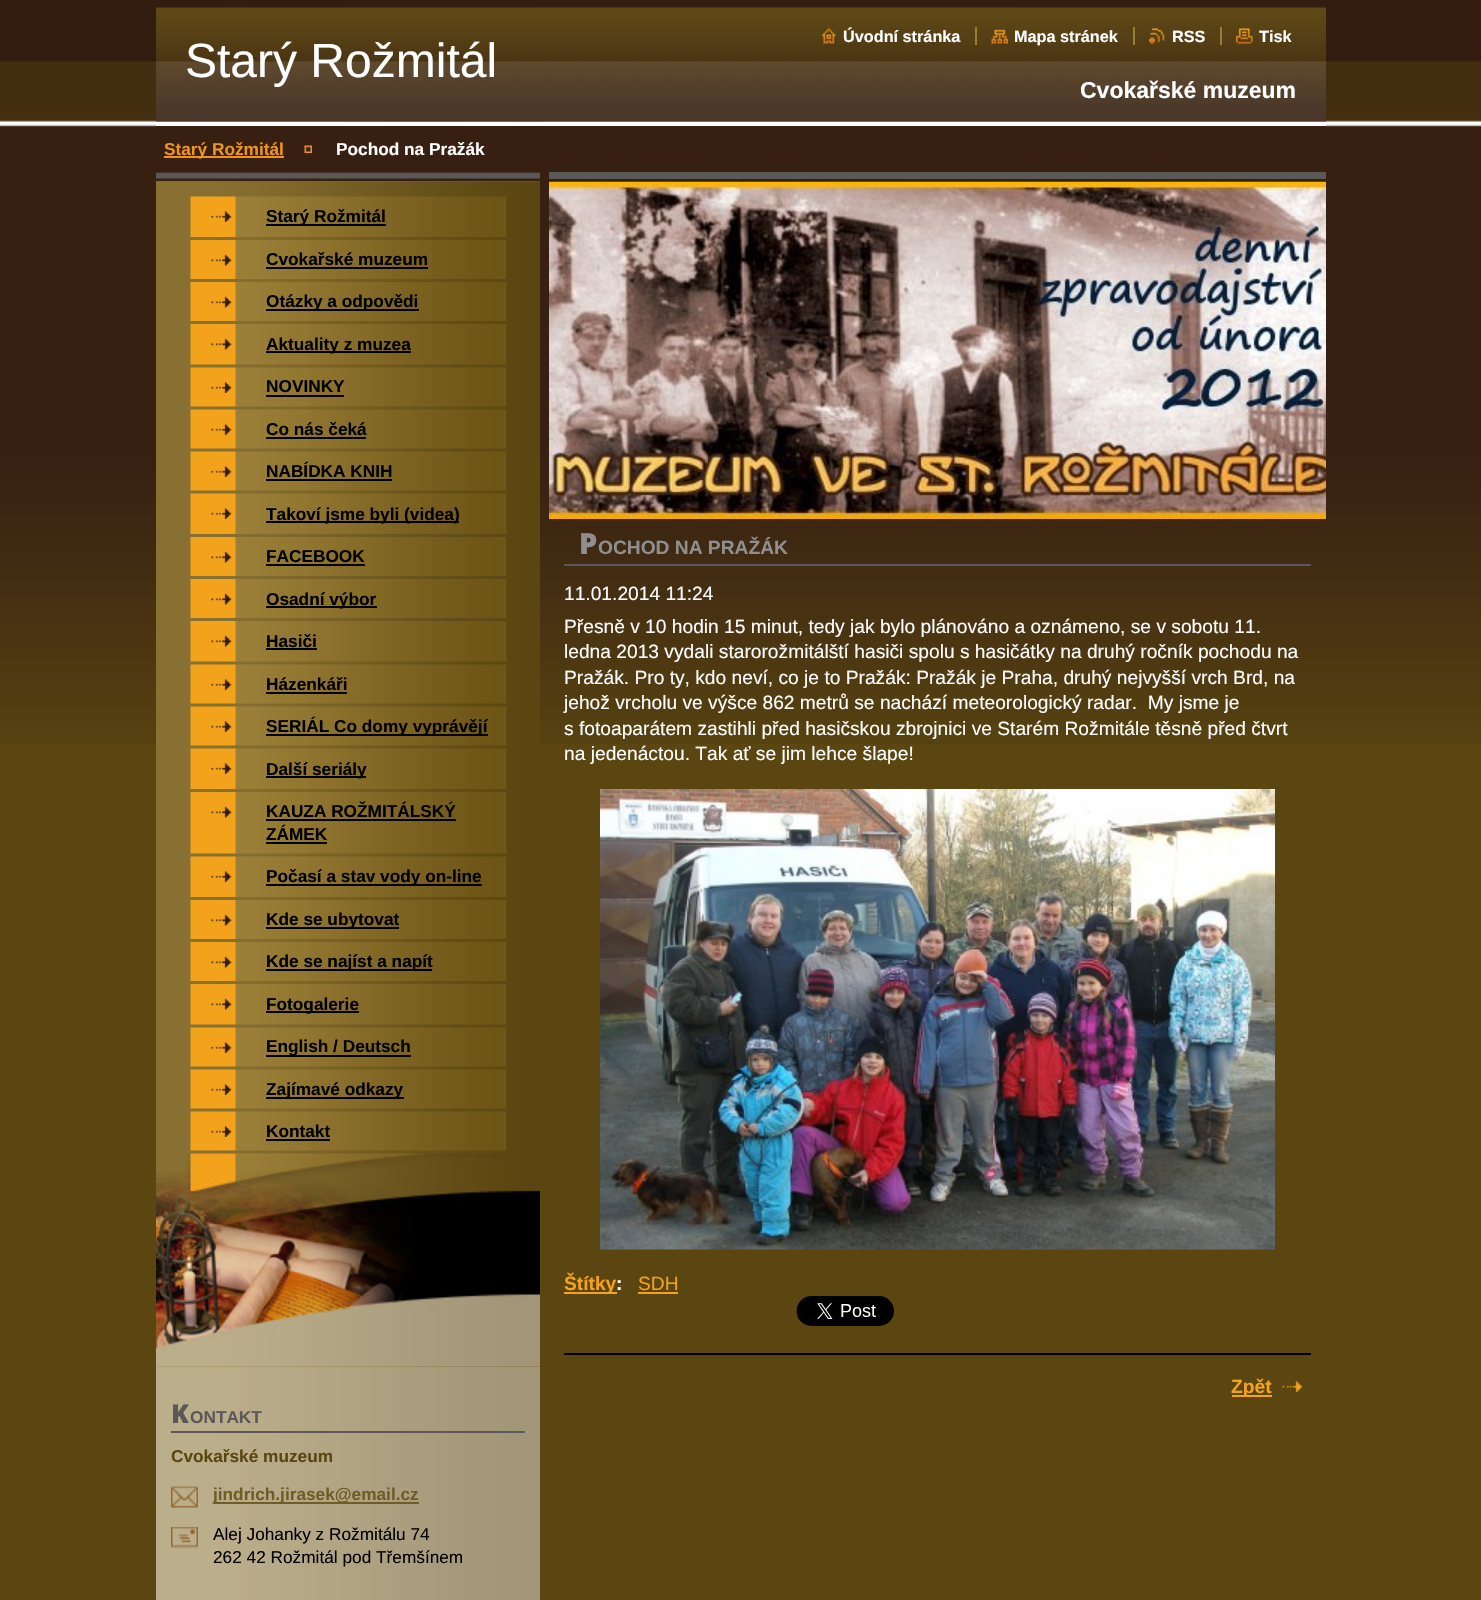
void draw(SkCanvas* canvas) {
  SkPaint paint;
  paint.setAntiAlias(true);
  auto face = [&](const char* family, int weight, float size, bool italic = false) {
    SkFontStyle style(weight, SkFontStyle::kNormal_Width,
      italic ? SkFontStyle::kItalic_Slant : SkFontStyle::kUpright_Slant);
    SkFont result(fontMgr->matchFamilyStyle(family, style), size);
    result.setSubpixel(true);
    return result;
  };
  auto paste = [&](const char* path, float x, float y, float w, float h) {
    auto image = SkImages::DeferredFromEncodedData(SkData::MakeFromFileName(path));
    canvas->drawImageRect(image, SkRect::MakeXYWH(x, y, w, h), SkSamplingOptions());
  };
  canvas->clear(0xff5b4611);
  paste("img/1.png", 0, 0, 1481, 744);
  paste("img/2.png", 156, 121, 384, 1479);
  paste("img/3.png", 156, 0, 1170, 122);
  paint.setColor(0xffffffff);
  canvas->drawRect(SkRect::MakeXYWH(156, 122, 1170, 4), paint);
  paste("img/4.png", 821, 28, 15, 16);
  paste("img/5.png", 991, 29, 17, 15);
  paint.setColor(0xff9a7e37);
  canvas->drawRect(SkRect::MakeXYWH(975, 27, 2, 18), paint);
  paste("img/6.png", 1149, 28, 16, 16);
  canvas->drawRect(SkRect::MakeXYWH(1133, 27, 2, 18), paint);
  paste("img/7.png", 1236, 28, 17, 16);
  {
    const struct { float x, y, w, h; SkColor color; } items[] = {
      {1220, 27, 2, 18, 0xff9a7e37},
      {156, 126, 1170, 44, 0xff372012},
      {164, 156, 120, 2, 0xffed951c},
    };
    for (auto [x, y, w, h, color] : items) {
      paint.setColor(color);
      canvas->drawRect(SkRect::MakeXYWH(x, y, w, h), paint);
    }
  }
  paste("img/8.png", 304, 145, 8, 8);
  paint.setColor(0xff372012);
  canvas->drawRect(SkRect::MakeXYWH(156, 170, 384, 3), paint);
  paste("img/9.png", 156, 172, 384, 10);
  paste("img/10.png", 156, 181, 384, 1186);
  paste("img/11.png", 190, 196, 316, 41);
  paste("img/12.png", 211, 211, 21, 11);
  paint.setColor(0xff000000);
  canvas->drawRect(SkRect::MakeXYWH(266, 224, 120, 2), paint);
  paste("img/13.png", 190, 240, 316, 39);
  paste("img/14.png", 211, 254, 21, 12);
  canvas->drawRect(SkRect::MakeXYWH(266, 267, 162, 2), paint);
  paste("img/15.png", 190, 282, 316, 39);
  paste("img/14.png", 211, 296, 21, 12);
  canvas->drawRect(SkRect::MakeXYWH(266, 309, 153, 2), paint);
  paste("img/16.png", 190, 324, 316, 41);
  paste("img/14.png", 211, 338, 21, 12);
  canvas->drawRect(SkRect::MakeXYWH(266, 351, 145, 2), paint);
  paste("img/17.png", 190, 367, 316, 40);
  paste("img/12.png", 211, 382, 21, 11);
  canvas->drawRect(SkRect::MakeXYWH(266, 395, 78, 2), paint);
  paste("img/18.png", 190, 409, 316, 40);
  paste("img/12.png", 211, 424, 21, 11);
  canvas->drawRect(SkRect::MakeXYWH(266, 437, 100, 2), paint);
  paste("img/19.png", 190, 451, 316, 40);
  paste("img/12.png", 211, 466, 21, 11);
  canvas->drawRect(SkRect::MakeXYWH(266, 479, 126, 2), paint);
  paste("img/20.png", 190, 493, 316, 41);
  paste("img/12.png", 211, 508, 21, 11);
  canvas->drawRect(SkRect::MakeXYWH(266, 521, 193, 2), paint);
  paste("img/21.png", 190, 537, 316, 39);
  paste("img/14.png", 211, 551, 21, 12);
  canvas->drawRect(SkRect::MakeXYWH(266, 564, 99, 2), paint);
  paste("img/22.png", 190, 579, 316, 39);
  paste("img/14.png", 211, 593, 21, 12);
  canvas->drawRect(SkRect::MakeXYWH(266, 606, 111, 2), paint);
  paste("img/23.png", 190, 621, 316, 41);
  paste("img/14.png", 211, 635, 21, 12);
  canvas->drawRect(SkRect::MakeXYWH(266, 648, 51, 2), paint);
  paste("img/24.png", 190, 664, 316, 40);
  paste("img/12.png", 211, 679, 21, 11);
  canvas->drawRect(SkRect::MakeXYWH(266, 692, 81, 2), paint);
  paste("img/25.png", 190, 706, 316, 40);
  paste("img/12.png", 211, 721, 21, 11);
  canvas->drawRect(SkRect::MakeXYWH(266, 734, 222, 2), paint);
  paste("img/26.png", 190, 748, 316, 41);
  paste("img/12.png", 211, 763, 21, 11);
  canvas->drawRect(SkRect::MakeXYWH(266, 776, 100, 2), paint);
  paste("img/27.png", 190, 792, 316, 62);
  paste("img/14.png", 211, 806, 21, 12);
  canvas->drawRect(SkRect::MakeXYWH(266, 819, 190, 2), paint);
  canvas->drawRect(SkRect::MakeXYWH(266, 842, 61, 2), paint);
  paste("img/28.png", 190, 856, 316, 41);
  paste("img/12.png", 211, 871, 21, 11);
  canvas->drawRect(SkRect::MakeXYWH(266, 884, 216, 2), paint);
  paste("img/29.png", 190, 900, 316, 39);
  paste("img/14.png", 211, 914, 21, 12);
  canvas->drawRect(SkRect::MakeXYWH(266, 927, 133, 2), paint);
  paste("img/30.png", 190, 942, 316, 39);
  paste("img/14.png", 211, 956, 21, 12);
  canvas->drawRect(SkRect::MakeXYWH(266, 969, 166, 2), paint);
  paste("img/31.png", 190, 984, 316, 41);
  paste("img/14.png", 211, 998, 21, 12);
  canvas->drawRect(SkRect::MakeXYWH(266, 1011, 93, 2), paint);
  paste("img/32.png", 190, 1027, 316, 40);
  paste("img/12.png", 211, 1042, 21, 11);
  canvas->drawRect(SkRect::MakeXYWH(266, 1055, 145, 2), paint);
  paste("img/33.png", 190, 1069, 316, 40);
  paste("img/12.png", 211, 1084, 21, 11);
  canvas->drawRect(SkRect::MakeXYWH(266, 1097, 138, 2), paint);
  paste("img/34.png", 190, 1111, 316, 40);
  paste("img/12.png", 211, 1126, 21, 11);
  canvas->drawRect(SkRect::MakeXYWH(266, 1139, 64, 2), paint);
  paste("img/35.png", 156, 1153, 384, 214);
  paint.setColor(0xff5c5859);
  canvas->drawRect(SkRect::MakeXYWH(171, 1431, 354, 2), paint);
  paste("img/36.png", 171, 1486, 27, 22);
  paint.setColor(0xff705d26);
  canvas->drawRect(SkRect::MakeXYWH(213, 1502, 206, 2), paint);
  paste("img/37.png", 171, 1527, 27, 22);
  paint.setColor(0xff5b5858);
  canvas->drawRect(SkRect::MakeXYWH(549, 172, 777, 7), paint);
  paste("img/38.png", 549, 181, 777, 338);
  paint.setColor(0xff5a5859);
  canvas->drawRect(SkRect::MakeXYWH(564, 564, 747, 2), paint);
  paste("img/39.png", 600, 789, 675, 461);
  paint.setColor(0xfff3a21c);
  canvas->drawRect(SkRect::MakeXYWH(564, 1292, 53, 2), paint);
  canvas->drawRect(SkRect::MakeXYWH(638, 1292, 40, 2), paint);
  paste("img/40.png", 796, 1296, 98, 30);
  paint.setColor(0xff000000);
  canvas->drawRect(SkRect::MakeXYWH(564, 1353, 747, 2), paint);
  paint.setColor(0xfff3a21c);
  canvas->drawRect(SkRect::MakeXYWH(1232, 1395, 40, 2), paint);
  paste("img/41.png", 1282, 1381, 20, 11);
  auto f0 = face("Liberation Sans", 700, 16.25f);
  paint.setColor(0xffffffff);
  {
    const struct { const char* s; float x, y; } items[] = {
      {"Úvodní stránka", 843, 42},
      {"Mapa stránek", 1014, 42},
      {"RSS", 1172, 42},
      {"Tisk", 1259, 42},
    };
    for (auto [s, x, y] : items) {
      canvas->drawString(s, x, y, f0, paint);
    }
  }
  auto f1 = face("Liberation Sans", 400, 48);
  canvas->drawString("Starý Rožmitál", 185, 77, f1, paint);
  auto f2 = face("Liberation Sans", 700, 23);
  canvas->drawString("Cvokařské muzeum", 1080, 98, f2, paint);
  auto f3 = face("Liberation Sans", 700, 17.25f);
  paint.setColor(0xffed951c);
  canvas->drawString("Starý Rožmitál", 164, 155, f3, paint);
  paint.setColor(0xffffffff);
  canvas->drawString("Pochod na Pražák", 336, 155, f3, paint);
  paint.setColor(0xff000000);
  {
    const struct { const char* s; float x, y; } items[] = {
      {"Starý Rožmitál", 266, 222},
      {"Cvokařské muzeum", 266, 265},
      {"Otázky a odpovědi", 266, 307},
      {"Aktuality z muzea", 266, 350},
      {"NOVINKY", 266, 392},
      {"Co nás čeká", 266, 435},
      {"NABÍDKA KNIH", 266, 477},
      {"Takoví jsme byli (videa)", 266, 520},
      {"FACEBOOK", 266, 562},
      {"Osadní výbor", 266, 605},
      {"Hasiči", 266, 647},
      {"Házenkáři", 266, 690},
      {"SERIÁL Co domy vyprávějí", 266, 732},
      {"Další seriály", 266, 775},
      {"KAUZA ROŽMITÁLSKÝ", 266, 817},
      {"ZÁMEK", 266, 840},
      {"Počasí a stav vody on-line", 266, 882},
      {"Kde se ubytovat", 266, 925},
      {"Kde se najíst a napít", 266, 967},
      {"Fotogalerie", 266, 1010},
      {"English / Deutsch", 266, 1052},
      {"Zajímavé odkazy", 266, 1095},
      {"Kontakt", 266, 1137},
    };
    for (auto [s, x, y] : items) {
      canvas->drawString(s, x, y, f3, paint);
    }
  }
  auto f4 = face("Noto Sans", 900, 26);
  paint.setColor(0xff5c5859);
  canvas->drawString("K", 171, 1423, f4, paint);
  canvas->drawString("ONTAKT", 190, 1423, f3, paint);
  paint.setColor(0xff5b4611);
  canvas->drawString("Cvokařské muzeum", 171, 1462, f3, paint);
  paint.setColor(0xff705d26);
  canvas->drawString("jindrich.jirasek@email.cz", 213, 1500, f3, paint);
  auto f5 = face("Liberation Sans", 400, 17.25f);
  paint.setColor(0xff000000);
  canvas->drawString("Alej Johanky z Rožmitálu 74", 213, 1540, f5, paint);
  canvas->drawString("262 42 Rožmitál pod Třemšínem", 213, 1563, f5, paint);
  auto f6 = face("Noto Sans", 900, 29);
  paint.setColor(0xff8f8f8f);
  canvas->drawString("P", 579, 554, f6, paint);
  auto f7 = face("Liberation Sans", 700, 19.2f);
  canvas->drawString("OCHOD NA PRAŽÁK", 598, 554, f7, paint);
  auto f8 = face("Liberation Sans", 400, 19.2f);
  paint.setColor(0xffffffff);
  {
    const struct { const char* s; float x, y; } items[] = {
      {"11.01.2014 11:24", 564, 600},
      {"Přesně v 10 hodin 15 minut, tedy jak bylo plánováno a oznámeno, se v sobotu 11.", 564, 633},
      {"ledna 2013 vydali starorožmitálští hasiči spolu s hasičátky na druhý ročník pochodu na", 564, 658},
      {"Pražák. Pro ty, kdo neví, co je to Pražák: Pražák je Praha, druhý nejvyšší vrch Brd, na", 564, 684},
      {"jehož vrcholu ve výšce 862 metrů se nachází meteorologický radar.  My jsme je", 564, 709},
      {"s fotoaparátem zastihli před hasičskou zbrojnici ve Starém Rožmitále těsně před čtvrt", 564, 735},
      {"na jedenáctou. Tak ať se jim lehce šlape!", 564, 760},
    };
    for (auto [s, x, y] : items) {
      canvas->drawString(s, x, y, f8, paint);
    }
  }
  paint.setColor(0xfff3a21c);
  canvas->drawString("Štítky", 564, 1290, f7, paint);
  paint.setColor(0xffffffff);
  canvas->drawString(":", 616, 1290, f7, paint);
  paint.setColor(0xfff3a21c);
  canvas->drawString("SDH", 638, 1290, f8, paint);
  canvas->drawString("Zpět", 1231, 1393, f7, paint);
}
